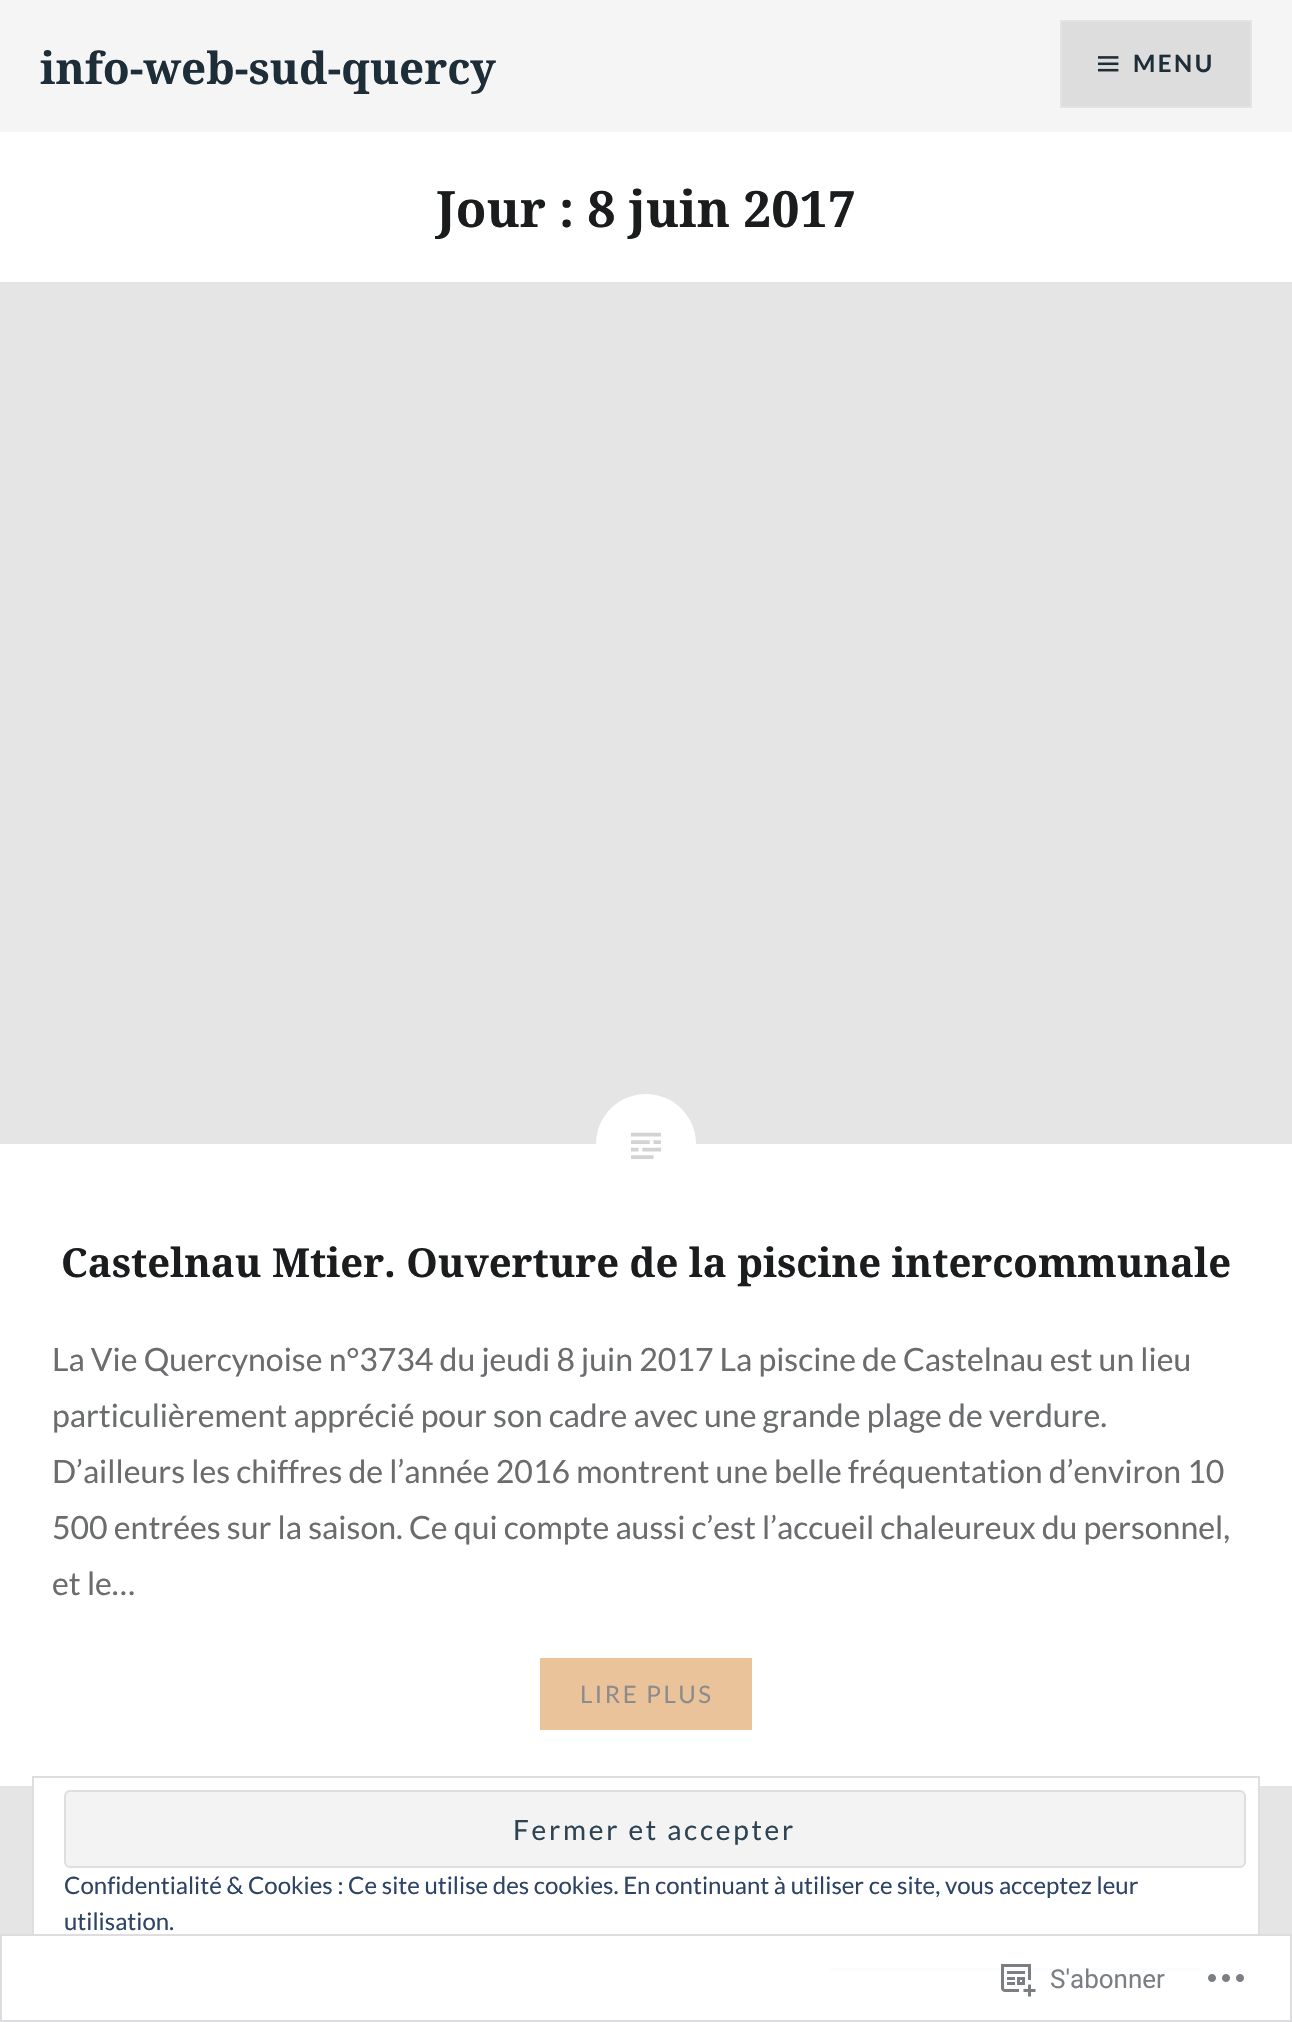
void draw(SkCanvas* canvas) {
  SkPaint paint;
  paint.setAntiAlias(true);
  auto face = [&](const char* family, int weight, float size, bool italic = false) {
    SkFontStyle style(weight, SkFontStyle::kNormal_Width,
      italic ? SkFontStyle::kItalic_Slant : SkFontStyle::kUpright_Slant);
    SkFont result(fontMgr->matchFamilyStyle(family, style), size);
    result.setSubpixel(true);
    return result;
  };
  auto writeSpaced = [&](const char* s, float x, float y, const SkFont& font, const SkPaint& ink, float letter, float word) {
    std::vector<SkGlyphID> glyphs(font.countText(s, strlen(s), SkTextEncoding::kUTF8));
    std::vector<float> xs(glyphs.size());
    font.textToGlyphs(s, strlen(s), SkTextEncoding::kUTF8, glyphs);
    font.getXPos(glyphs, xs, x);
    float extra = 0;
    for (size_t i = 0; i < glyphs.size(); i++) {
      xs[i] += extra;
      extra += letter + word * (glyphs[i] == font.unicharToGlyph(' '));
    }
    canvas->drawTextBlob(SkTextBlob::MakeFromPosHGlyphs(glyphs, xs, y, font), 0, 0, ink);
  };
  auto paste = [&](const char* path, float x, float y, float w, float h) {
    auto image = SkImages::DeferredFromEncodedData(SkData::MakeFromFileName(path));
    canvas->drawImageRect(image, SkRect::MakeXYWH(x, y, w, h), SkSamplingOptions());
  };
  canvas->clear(0xffffffff);
  paint.setColor(0xfff5f5f5);
  canvas->drawRect(SkRect::MakeXYWH(0, 0, 1292, 132), paint);
  paint.setColor(0xffdddddd);
  canvas->drawRect(SkRect::MakeXYWH(1061, 21, 190, 86), paint);
  paint.setStroke(true);
  paint.setStrokeWidth(2);
  paint.setColor(0xffe4e4e4);
  canvas->drawRect(SkRect::MakeXYWH(1061, 21, 190, 86), paint);
  paste("img/1.png", 1098, 56, 21, 16);
  paint.setStroke(false);
  paint.setColor(0xffe5e5e5);
  canvas->drawRect(SkRect::MakeXYWH(0, 282, 1292, 862), paint);
  paint.setColor(0xffffffff);
  canvas->drawCircle(646, 1144, 50, paint);
  paste("img/2.png", 631, 1132, 30, 27);
  {
    const struct { float x, y, w, h; SkColor color; } items[] = {
      {540, 1658, 212, 72, 0xffebc39b},
      {0, 1786, 1292, 234, 0xffe5e5e5},
      {34, 1786, 1224, 202, 0xffffffff},
    };
    for (auto [x, y, w, h, color] : items) {
      paint.setColor(color);
      canvas->drawRect(SkRect::MakeXYWH(x, y, w, h), paint);
    }
  }
  paint.setStroke(true);
  paint.setColor(0xffdedede);
  canvas->drawRect(SkRect::MakeXYWH(33, 1777, 1226, 212), paint);
  paint.setStroke(false);
  paint.setColor(0xfff3f3f3);
  canvas->drawRoundRect(SkRect::MakeXYWH(65, 1791, 1180, 76), 5, 5, paint);
  paint.setStroke(true);
  paint.setColor(0xffdedede);
  canvas->drawRoundRect(SkRect::MakeXYWH(65, 1791, 1180, 76), 5, 5, paint);
  paint.setStroke(false);
  paint.setColor(0xff2e4467);
  canvas->drawRect(SkRect::MakeXYWH(830, 1968, 372, 2), paint);
  paint.setColor(0xfaffffff);
  canvas->drawRect(SkRect::MakeXYWH(1, 1935, 1290, 86), paint);
  paint.setStroke(true);
  paint.setColor(0xffdddddf);
  canvas->drawRect(SkRect::MakeXYWH(1, 1935, 1290, 86), paint);
  paste("img/3.png", 1001, 1964, 35, 33);
  paste("img/4.png", 1208, 1974, 36, 8);
  auto f0 = face("Noto Serif", 700, 44);
  paint.setStroke(false);
  paint.setColor(0xff1e2e38);
  canvas->drawString("info-web-sud-quercy", 40, 84, f0, paint);
  auto f1 = face("Lato", 700, 24);
  writeSpaced("MENU", 1133, 72, f1, paint, 2.5f, 0);
  auto f2 = face("Noto Serif", 700, 50);
  paint.setColor(0xff1a1c1e);
  canvas->drawString("Jour : 8 juin 2017", 436, 227, f2, paint);
  auto f3 = face("Noto Serif", 700, 40);
  canvas->drawString("Castelnau Mtier. Ouverture de la piscine intercommunale", 61, 1277, f3, paint);
  auto f4 = face("Lato", 400, 32);
  paint.setColor(0xff6a6c6e);
  {
    const struct { const char* s; float x, y; } items[] = {
      {"La Vie Quercynoise n°3734 du jeudi 8 juin 2017 La piscine de Castelnau est un lieu", 52, 1371},
      {"particulièrement apprécié pour son cadre avec une grande plage de verdure.", 52, 1427},
      {"D’ailleurs les chiffres de l’année 2016 montrent une belle fréquentation d’environ 10", 52, 1483},
      {"500 entrées sur la saison. Ce qui compte aussi c’est l’accueil chaleureux du personnel,", 52, 1539},
      {"et le…", 52, 1595},
    };
    for (auto [s, x, y] : items) {
      canvas->drawString(s, x, y, f4, paint);
    }
  }
  auto f5 = face("Lato", 400, 24);
  paint.setColor(0xff8c8c8c);
  writeSpaced("LIRE PLUS", 580, 1703, f5, paint, 2.5f, 0);
  auto f6 = face("Lato", 400, 28);
  paint.setColor(0xff2e4453);
  writeSpaced("Fermer et accepter", 513, 1840, f6, paint, 2.75f, 0);
  paint.setColor(0xff2e4467);
  canvas->drawString("Confidentialité & Cookies : Ce site utilise des cookies. En continuant à utiliser ce site, vous acceptez leur", 64, 1894, f5, paint);
  canvas->drawString("utilisation.", 64, 1930, f5, paint);
  auto f7 = face("Roboto", 400, 26);
  paint.setColor(0xff7b7f84);
  canvas->drawString("S'abonner", 1050, 1988, f7, paint);
}
